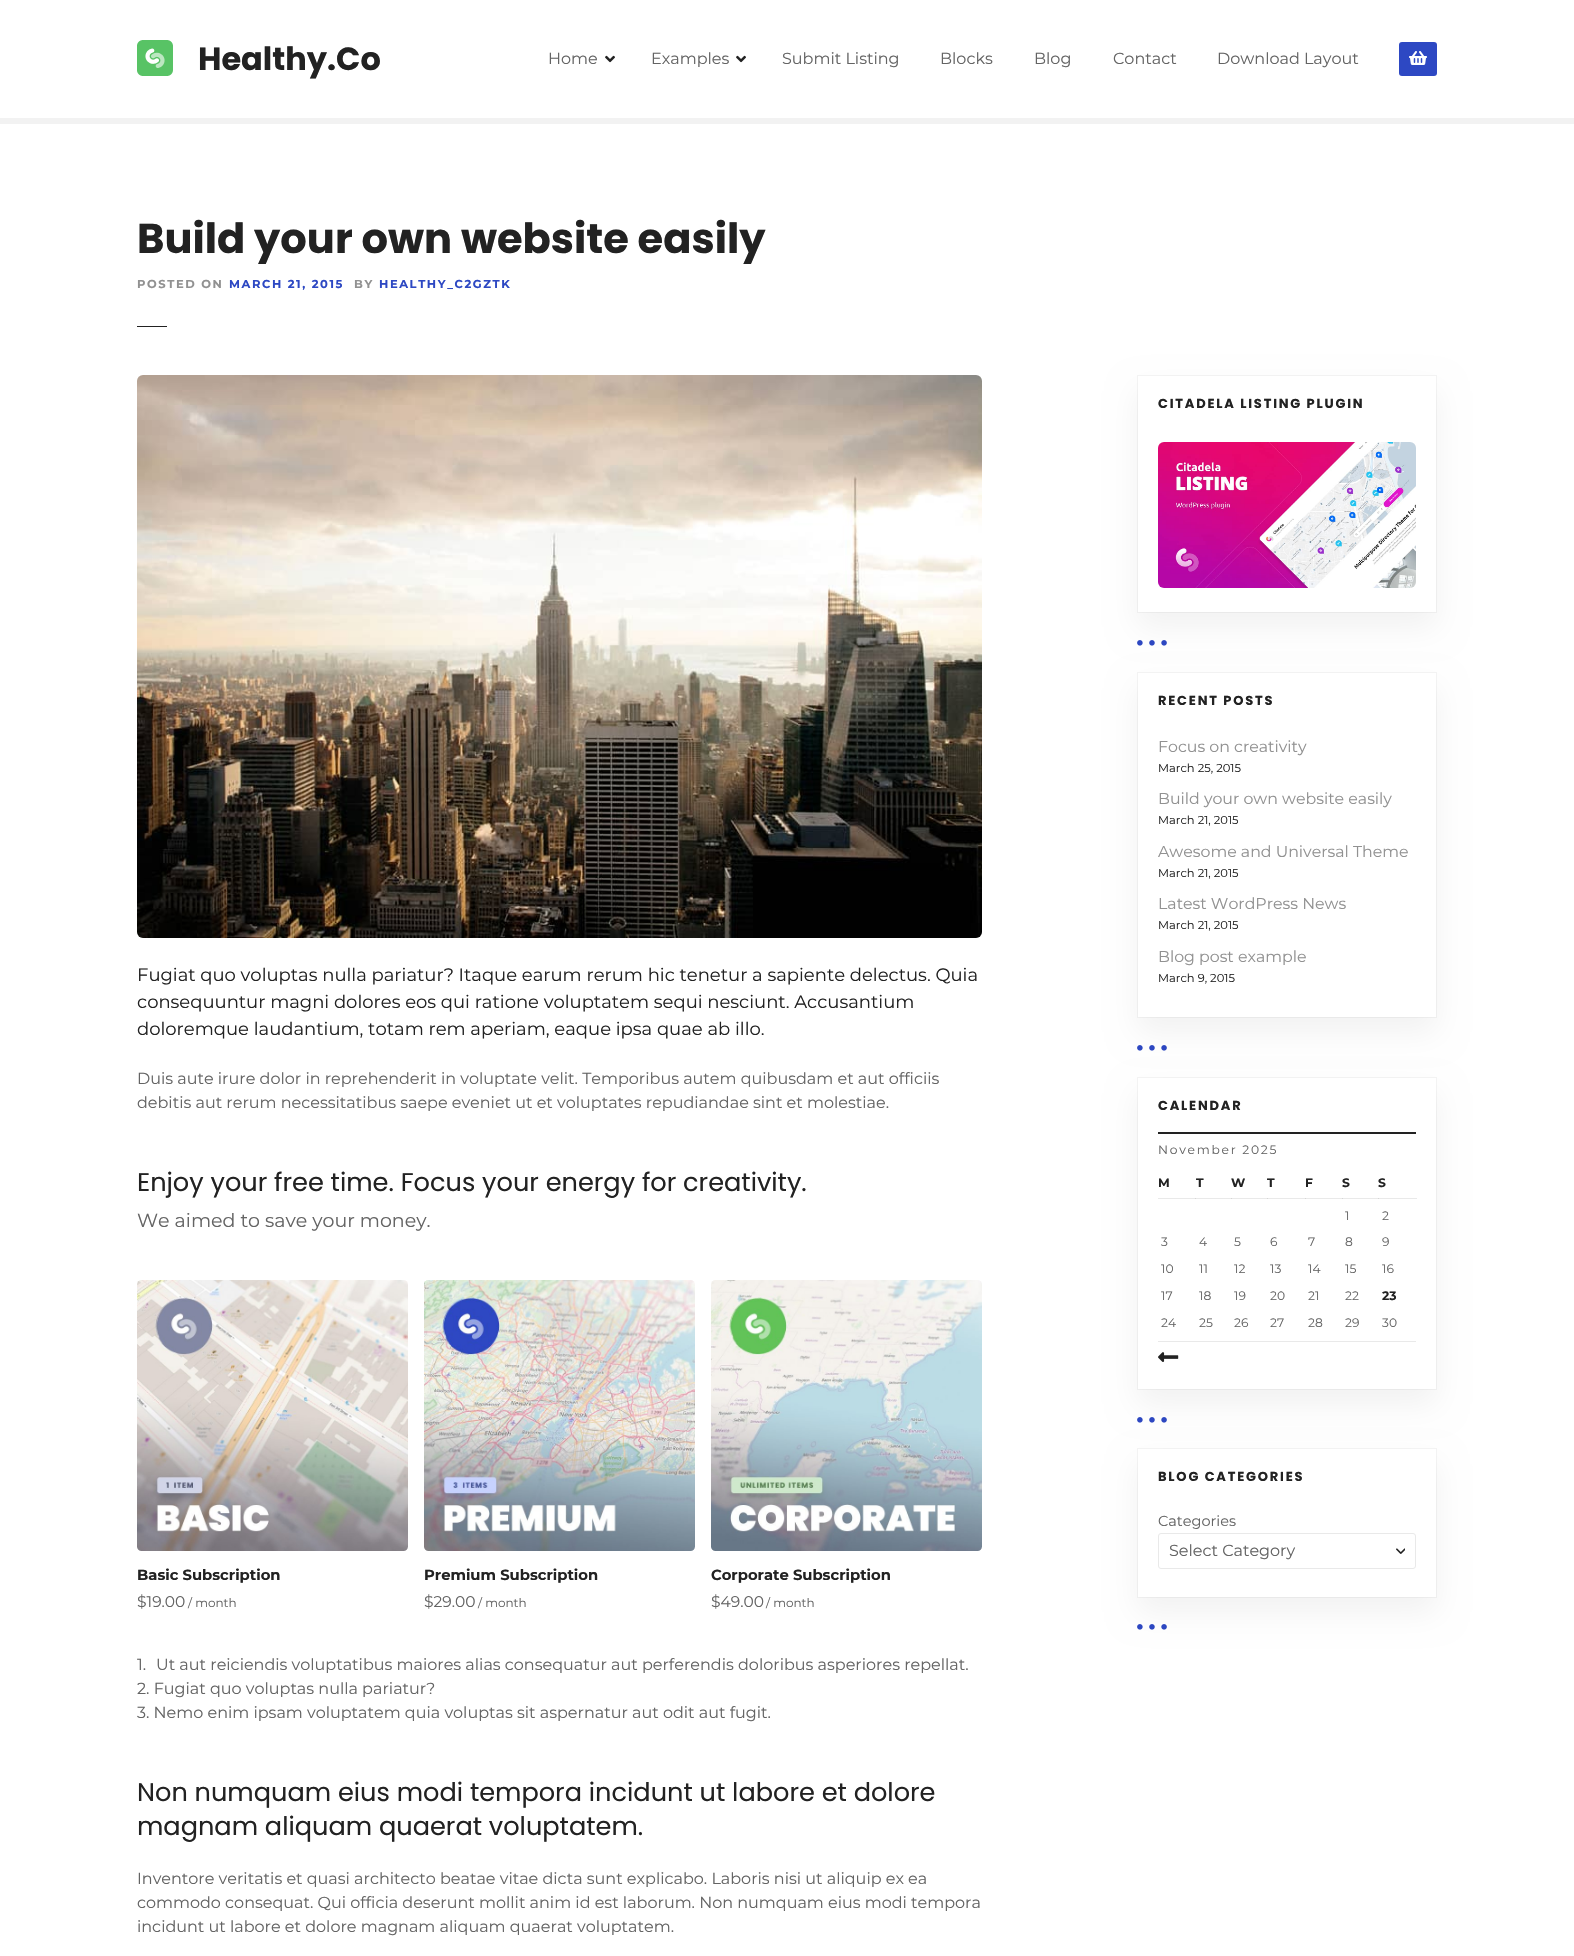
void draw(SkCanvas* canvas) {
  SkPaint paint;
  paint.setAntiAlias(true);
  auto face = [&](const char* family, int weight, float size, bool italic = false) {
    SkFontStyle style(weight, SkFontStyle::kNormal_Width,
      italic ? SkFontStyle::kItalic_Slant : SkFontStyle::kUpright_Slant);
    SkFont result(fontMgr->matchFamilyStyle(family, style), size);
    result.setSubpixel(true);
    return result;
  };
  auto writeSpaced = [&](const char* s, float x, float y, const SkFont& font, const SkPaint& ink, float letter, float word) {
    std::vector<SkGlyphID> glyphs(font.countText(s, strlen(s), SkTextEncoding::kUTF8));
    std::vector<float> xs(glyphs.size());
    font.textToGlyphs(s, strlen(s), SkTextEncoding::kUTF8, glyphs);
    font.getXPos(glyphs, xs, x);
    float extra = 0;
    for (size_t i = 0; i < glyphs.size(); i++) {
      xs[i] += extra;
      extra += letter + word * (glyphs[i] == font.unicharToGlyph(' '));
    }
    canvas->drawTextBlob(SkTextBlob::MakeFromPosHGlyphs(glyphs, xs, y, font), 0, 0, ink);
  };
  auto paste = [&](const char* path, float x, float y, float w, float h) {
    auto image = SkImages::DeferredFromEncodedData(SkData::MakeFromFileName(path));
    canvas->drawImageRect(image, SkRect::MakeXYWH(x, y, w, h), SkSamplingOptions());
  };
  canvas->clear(0xffffffff);
  paint.setColor(0xfff2f2f2);
  canvas->drawRect(SkRect::MakeXYWH(0, 118, 1574, 6), paint);
  paste("img/1.png", 137, 40, 36, 36);
  paste("img/2.png", 605, 55, 10, 8);
  paste("img/2.png", 736, 55, 10, 8);
  paint.setColor(0xff2d48c3);
  canvas->drawRoundRect(SkRect::MakeXYWH(1399, 42, 38, 34), 3, 3, paint);
  paste("img/3.png", 1409, 51, 18, 14);
  paint.setColor(0xff222222);
  canvas->drawRect(SkRect::MakeXYWH(137, 326, 30, 1), paint);
  paste("img/4.png", 137, 375, 845, 563);
  paste("img/5.png", 137, 1280, 271, 271);
  paste("img/6.png", 424, 1280, 271, 271);
  paste("img/7.png", 711, 1280, 271, 271);
  paste("img/9.png", 1137, 640, 30, 6);
  paint.setColor(0x0d000000);
  paint.setMaskFilter(SkMaskFilter::MakeBlur(kNormal_SkBlurStyle, 15));
  canvas->drawRoundRect(SkRect::MakeXYWH(1137, 390, 300, 238), 5, 5, paint);
  paint.setMaskFilter(nullptr);
  paint.setStroke(true);
  paint.setStrokeWidth(1);
  paint.setColor(0x0a000000);
  canvas->drawRect(SkRect::MakeXYWH(1137.5f, 375.5f, 299, 237), paint);
  paint.setStroke(false);
  paint.setColor(0xffffffff);
  canvas->drawRect(SkRect::MakeXYWH(1138, 376, 298, 236), paint);
  paste("img/8.png", 1158, 442, 258, 146);
  paste("img/9.png", 1137, 1045, 30, 6);
  paint.setColor(0x0d000000);
  paint.setMaskFilter(SkMaskFilter::MakeBlur(kNormal_SkBlurStyle, 15));
  canvas->drawRoundRect(SkRect::MakeXYWH(1137, 687, 300, 346), 5, 5, paint);
  paint.setMaskFilter(nullptr);
  paint.setStroke(true);
  paint.setColor(0x0a000000);
  canvas->drawRect(SkRect::MakeXYWH(1137.5f, 672.5f, 299, 345), paint);
  paint.setStroke(false);
  paint.setColor(0xffffffff);
  canvas->drawRect(SkRect::MakeXYWH(1138, 673, 298, 344), paint);
  paste("img/9.png", 1137, 1417, 30, 6);
  paint.setColor(0x0d000000);
  paint.setMaskFilter(SkMaskFilter::MakeBlur(kNormal_SkBlurStyle, 15));
  canvas->drawRoundRect(SkRect::MakeXYWH(1137, 1092, 300, 313), 5, 5, paint);
  paint.setMaskFilter(nullptr);
  paint.setStroke(true);
  paint.setColor(0x0a000000);
  canvas->drawRect(SkRect::MakeXYWH(1137.5f, 1077.5f, 299, 312), paint);
  paint.setStroke(false);
  {
    const struct { float x, y, w, h; SkColor color; } items[] = {
      {1138, 1078, 298, 311, 0xffffffff},
      {1158, 1198, 259, 1, 0xffe9e9e9},
      {1195, 1198, 1, 1, 0xffd5d5d5},
      {1231, 1198, 1, 1, 0xffd5d5d5},
      {1267, 1198, 1, 1, 0xffd5d5d5},
      {1305, 1198, 1, 1, 0xffd5d5d5},
      {1342, 1198, 1, 1, 0xffd5d5d5},
      {1158, 1132, 258, 2, 0xff222222},
      {1378, 1198, 1, 1, 0xffd5d5d5},
      {1158, 1341, 258, 1, 0xffe9e9e9},
    };
    for (auto [x, y, w, h, color] : items) {
      paint.setColor(color);
      canvas->drawRect(SkRect::MakeXYWH(x, y, w, h), paint);
    }
  }
  paste("img/10.png", 1158, 1352, 21, 10);
  paste("img/9.png", 1137, 1624, 30, 6);
  paint.setColor(0x0d000000);
  paint.setMaskFilter(SkMaskFilter::MakeBlur(kNormal_SkBlurStyle, 15));
  canvas->drawRoundRect(SkRect::MakeXYWH(1137, 1463, 300, 150), 5, 5, paint);
  paint.setMaskFilter(nullptr);
  paint.setStroke(true);
  paint.setColor(0x0a000000);
  canvas->drawRect(SkRect::MakeXYWH(1137.5f, 1448.5f, 299, 149), paint);
  paint.setStroke(false);
  paint.setColor(0xffffffff);
  canvas->drawRect(SkRect::MakeXYWH(1138, 1449, 298, 148), paint);
  paste("img/11.png", 1396, 1548, 9, 6);
  paint.setStroke(true);
  paint.setColor(0xffe9e9e9);
  canvas->drawRoundRect(SkRect::MakeXYWH(1158.5f, 1533.5f, 257, 35), 2.5f, 2.5f, paint);
  auto f0 = face("Poppins", 700, 32);
  paint.setStroke(false);
  paint.setColor(0xff222222);
  canvas->drawString("Healthy.Co", 198, 70, f0, paint);
  auto f1 = face("Montserrat", 400, 16);
  paint.setColor(0xff646464);
  {
    const struct { const char* s; float x, y; } items[] = {
      {"Home", 548, 64},
      {"Examples", 651, 64},
      {"Submit Listing", 782, 64},
      {"Blocks", 940, 64},
      {"Blog", 1034, 64},
      {"Contact", 1113, 64},
      {"Download Layout", 1217, 64},
    };
    for (auto [s, x, y] : items) {
      canvas->drawString(s, x, y, f1, paint);
    }
  }
  auto f2 = face("Poppins", 700, 41.6f);
  paint.setColor(0xff222222);
  canvas->drawString("Build your own website easily", 137, 253, f2, paint);
  auto f3 = face("Montserrat", 700, 11.5f);
  paint.setColor(0xff919191);
  writeSpaced("POSTED ON", 137, 288, f3, paint, 1.6f, 0);
  paint.setColor(0xff2d48c3);
  writeSpaced("MARCH 21, 2015", 229, 288, f3, paint, 1.6f, 0);
  paint.setColor(0xff919191);
  writeSpaced("BY", 354, 288, f3, paint, 1.6f, 0);
  paint.setColor(0xff2d48c3);
  writeSpaced("HEALTHY_C2GZTK", 379, 288, f3, paint, 1.6f, 0);
  auto f4 = face("Montserrat", 400, 18);
  paint.setColor(0xff222222);
  {
    const struct { const char* s; float x, y; } items[] = {
      {"Fugiat quo voluptas nulla pariatur? Itaque earum rerum hic tenetur a sapiente delectus. Quia", 137, 981},
      {"consequuntur magni dolores eos qui ratione voluptatem sequi nesciunt. Accusantium", 137, 1008},
      {"doloremque laudantium, totam rem aperiam, eaque ipsa quae ab illo.", 137, 1035},
    };
    for (auto [s, x, y] : items) {
      canvas->drawString(s, x, y, f4, paint);
    }
  }
  paint.setColor(0xff646464);
  canvas->drawString("Duis aute irure dolor in reprehenderit in voluptate velit. Temporibus autem quibusdam et aut officiis", 137, 1084, f1, paint);
  canvas->drawString("debitis aut rerum necessitatibus saepe eveniet ut et voluptates repudiandae sint et molestiae.", 137, 1108, f1, paint);
  auto f5 = face("Poppins", 400, 25.6f);
  paint.setColor(0xff222222);
  canvas->drawString("Enjoy your free time. Focus your energy for creativity.", 137, 1191, f5, paint);
  auto f6 = face("Montserrat", 400, 19);
  paint.setColor(0xff646464);
  canvas->drawString("We aimed to save your money.", 137, 1227, f6, paint);
  auto f7 = face("Montserrat", 700, 14.75f);
  paint.setColor(0xff222222);
  canvas->drawString("Basic Subscription", 137, 1580, f7, paint);
  auto f8 = face("Montserrat", 400, 15.5f);
  paint.setColor(0xff646464);
  canvas->drawString("$19.00", 137, 1607, f8, paint);
  auto f9 = face("Montserrat", 400, 12);
  canvas->drawString("/ month", 188, 1607, f9, paint);
  paint.setColor(0xff222222);
  canvas->drawString("Premium Subscription", 424, 1580, f7, paint);
  paint.setColor(0xff646464);
  canvas->drawString("$29.00", 424, 1607, f8, paint);
  canvas->drawString("/ month", 478, 1607, f9, paint);
  paint.setColor(0xff222222);
  canvas->drawString("Corporate Subscription", 711, 1580, f7, paint);
  paint.setColor(0xff646464);
  canvas->drawString("$49.00", 711, 1607, f8, paint);
  canvas->drawString("/ month", 766, 1607, f9, paint);
  {
    const struct { const char* s; float x, y; } items[] = {
      {"1.", 137, 1670},
      {"Ut aut reiciendis voluptatibus maiores alias consequatur aut perferendis doloribus asperiores repellat.", 156, 1670},
      {"2. Fugiat quo voluptas nulla pariatur?", 137, 1694},
      {"3. Nemo enim ipsam voluptatem quia voluptas sit aspernatur aut odit aut fugit.", 137, 1718},
    };
    for (auto [s, x, y] : items) {
      canvas->drawString(s, x, y, f1, paint);
    }
  }
  paint.setColor(0xff222222);
  canvas->drawString("Non numquam eius modi tempora incidunt ut labore et dolore", 137, 1801, f5, paint);
  canvas->drawString("magnam aliquam quaerat voluptatem.", 137, 1835, f5, paint);
  paint.setColor(0xff646464);
  {
    const struct { const char* s; float x, y; } items[] = {
      {"Inventore veritatis et quasi architecto beatae vitae dicta sunt explicabo. Laboris nisi ut aliquip ex ea", 137, 1884},
      {"commodo consequat. Qui officia deserunt mollit anim id est laborum. Non numquam eius modi tempora", 137, 1908},
      {"incidunt ut labore et dolore magnam aliquam quaerat voluptatem.", 137, 1932},
    };
    for (auto [s, x, y] : items) {
      canvas->drawString(s, x, y, f1, paint);
    }
  }
  auto f10 = face("Poppins", 700, 13);
  paint.setColor(0xff222222);
  writeSpaced("CITADELA LISTING PLUGIN", 1158, 408, f10, paint, 1.8f, 0);
  writeSpaced("RECENT POSTS", 1158, 705, f10, paint, 1.8f, 0);
  auto f11 = face("Montserrat", 400, 15.8f);
  paint.setColor(0xff919191);
  canvas->drawString("Focus on creativity", 1158, 752, f11, paint);
  auto f12 = face("Montserrat", 400, 11.5f);
  paint.setColor(0xff222222);
  canvas->drawString("March 25, 2015", 1158, 772, f12, paint);
  paint.setColor(0xff919191);
  canvas->drawString("Build your own website easily", 1158, 804, f11, paint);
  paint.setColor(0xff222222);
  canvas->drawString("March 21, 2015", 1158, 824, f12, paint);
  paint.setColor(0xff919191);
  canvas->drawString("Awesome and Universal Theme", 1158, 857, f11, paint);
  paint.setColor(0xff222222);
  canvas->drawString("March 21, 2015", 1158, 877, f12, paint);
  paint.setColor(0xff919191);
  canvas->drawString("Latest WordPress News", 1158, 909, f11, paint);
  paint.setColor(0xff222222);
  canvas->drawString("March 21, 2015", 1158, 929, f12, paint);
  paint.setColor(0xff919191);
  canvas->drawString("Blog post example", 1158, 962, f11, paint);
  paint.setColor(0xff222222);
  canvas->drawString("March 9, 2015", 1158, 982, f12, paint);
  writeSpaced("CALENDAR", 1158, 1110, f10, paint, 1.8f, 0);
  auto f13 = face("Montserrat", 400, 12.25f);
  paint.setColor(0xff646464);
  writeSpaced("November 2025", 1158, 1154, f13, paint, 1.75f, 0);
  auto f14 = face("Montserrat", 700, 12.25f);
  paint.setColor(0xff222222);
  {
    const struct { const char* s; float x, y; } items[] = {
      {"M", 1158, 1187},
      {"T", 1196, 1187},
      {"W", 1231, 1187},
      {"T", 1267, 1187},
      {"F", 1305, 1187},
      {"S", 1342, 1187},
      {"S", 1378, 1187},
    };
    for (auto [s, x, y] : items) {
      canvas->drawString(s, x, y, f14, paint);
    }
  }
  paint.setColor(0xff646464);
  {
    const struct { const char* s; float x, y; } items[] = {
      {"1", 1345, 1220},
      {"2", 1382, 1220},
      {"3", 1161, 1246},
      {"4", 1199, 1246},
      {"5", 1234, 1246},
      {"6", 1270, 1246},
      {"7", 1308, 1246},
      {"8", 1345, 1246},
      {"9", 1382, 1246},
      {"10", 1161, 1273},
      {"11", 1199, 1273},
      {"12", 1234, 1273},
      {"13", 1270, 1273},
      {"14", 1308, 1273},
      {"15", 1345, 1273},
      {"16", 1382, 1273},
      {"17", 1161, 1300},
      {"18", 1199, 1300},
      {"19", 1234, 1300},
      {"20", 1270, 1300},
      {"21", 1308, 1300},
      {"22", 1345, 1300},
    };
    for (auto [s, x, y] : items) {
      canvas->drawString(s, x, y, f13, paint);
    }
  }
  paint.setColor(0xff222222);
  canvas->drawString("23", 1382, 1300, f14, paint);
  paint.setColor(0xff646464);
  {
    const struct { const char* s; float x, y; } items[] = {
      {"24", 1161, 1327},
      {"25", 1199, 1327},
      {"26", 1234, 1327},
      {"27", 1270, 1327},
      {"28", 1308, 1327},
      {"29", 1345, 1327},
      {"30", 1382, 1327},
    };
    for (auto [s, x, y] : items) {
      canvas->drawString(s, x, y, f13, paint);
    }
  }
  paint.setColor(0xff222222);
  writeSpaced("BLOG CATEGORIES", 1158, 1481, f10, paint, 1.8f, 0);
  auto f15 = face("Montserrat", 400, 14.5f);
  paint.setColor(0xff646464);
  canvas->drawString("Categories", 1158, 1526, f15, paint);
  canvas->drawString("Select Category", 1169, 1556, f1, paint);
}
